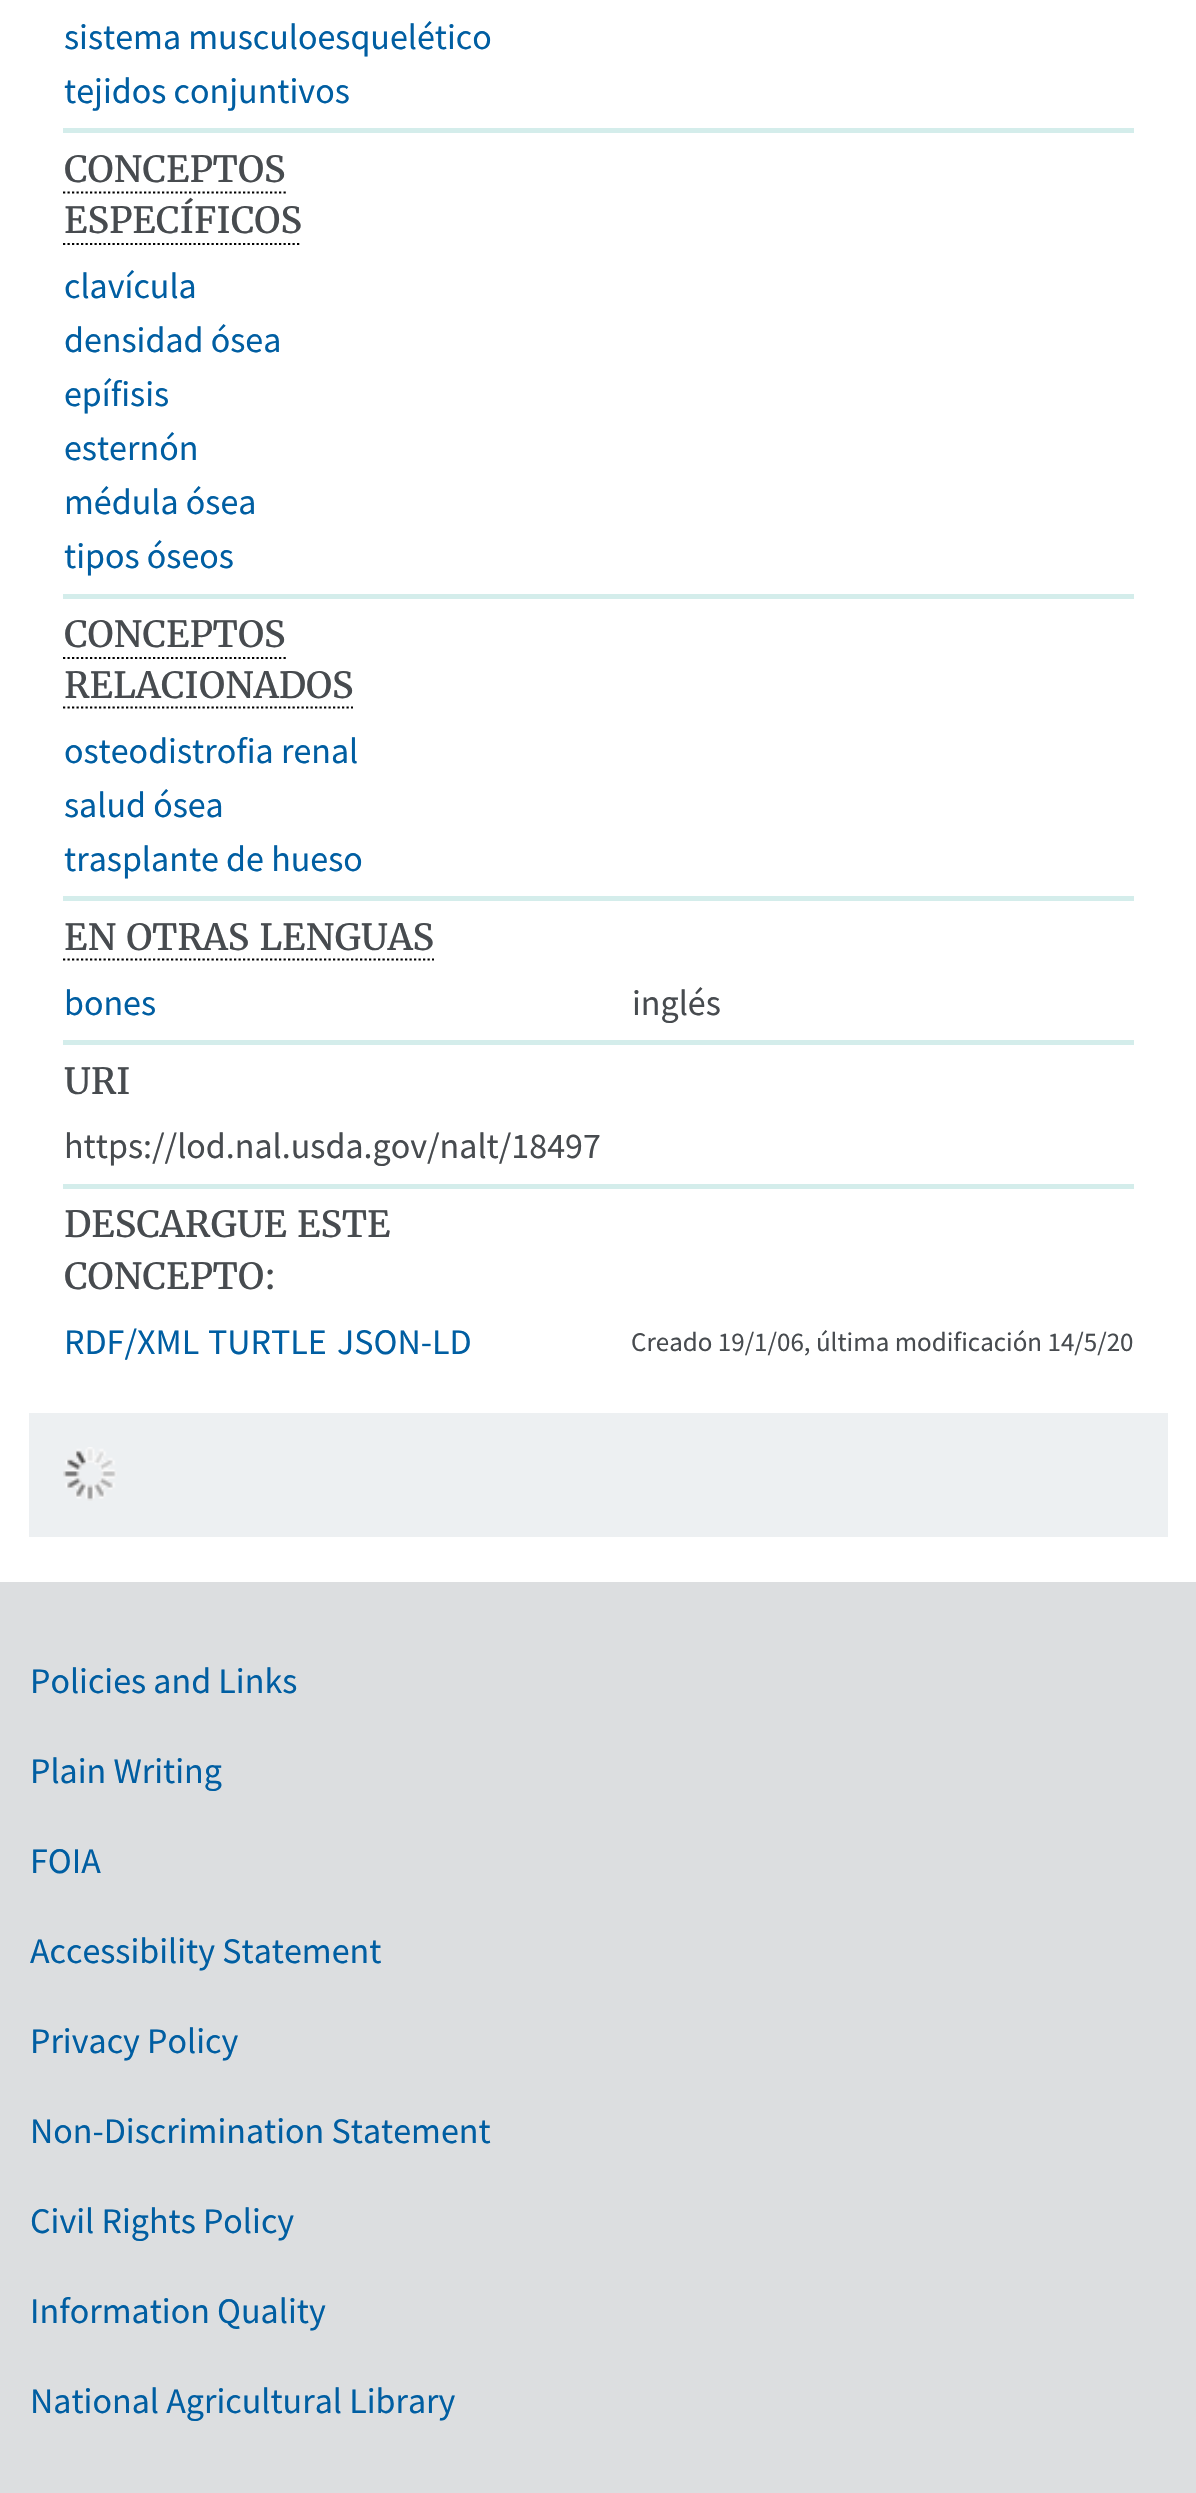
void draw(SkCanvas* canvas) {
  SkPaint paint;
  paint.setAntiAlias(true);
  auto face = [&](const char* family, int weight, float size, bool italic = false) {
    SkFontStyle style(weight, SkFontStyle::kNormal_Width,
      italic ? SkFontStyle::kItalic_Slant : SkFontStyle::kUpright_Slant);
    SkFont result(fontMgr->matchFamilyStyle(family, style), size);
    result.setSubpixel(true);
    return result;
  };
  auto paste = [&](const char* path, float x, float y, float w, float h) {
    auto image = SkImages::DeferredFromEncodedData(SkData::MakeFromFileName(path));
    canvas->drawImageRect(image, SkRect::MakeXYWH(x, y, w, h), SkSamplingOptions());
  };
  auto shape = [&](const char* data, bool evenOdd = false) {
    SkPath result = *SkParsePath::FromSVGString(data);
    if (evenOdd) result.setFillType(SkPathFillType::kEvenOdd);
    return result;
  };
  canvas->clear(0xffffffff);
  paint.setColor(0xffd4edeb);
  canvas->drawRect(SkRect::MakeXYWH(63, 128, 1071, 5), paint);
  paint.setStroke(true);
  paint.setStrokeWidth(2.2f);
  paint.setColor(0xff000000);
  paint.setPathEffect(SkDashPathEffect::Make({{2.25f, 2.25f}}, 0));
  canvas->drawPath(shape("M63 192.5H286"), paint);
  paint.setPathEffect(nullptr);
  paint.setPathEffect(SkDashPathEffect::Make({{2.25f, 2.25f}}, 0));
  canvas->drawPath(shape("M63 244H301.5"), paint);
  paint.setPathEffect(nullptr);
  paint.setStroke(false);
  paint.setColor(0xffd4edeb);
  canvas->drawRect(SkRect::MakeXYWH(63, 594, 1071, 5), paint);
  paint.setStroke(true);
  paint.setColor(0xff000000);
  paint.setPathEffect(SkDashPathEffect::Make({{2.25f, 2.25f}}, 0));
  canvas->drawPath(shape("M63 658H286"), paint);
  paint.setPathEffect(nullptr);
  paint.setPathEffect(SkDashPathEffect::Make({{2.25f, 2.25f}}, 0));
  canvas->drawPath(shape("M63 707.5H353"), paint);
  paint.setPathEffect(nullptr);
  paint.setStroke(false);
  paint.setColor(0xffd4edeb);
  canvas->drawRect(SkRect::MakeXYWH(63, 896, 1071, 5), paint);
  paint.setStroke(true);
  paint.setColor(0xff000000);
  paint.setPathEffect(SkDashPathEffect::Make({{2.25f, 2.25f}}, 0));
  canvas->drawPath(shape("M63 959.5H434"), paint);
  paint.setPathEffect(nullptr);
  paint.setStroke(false);
  {
    const struct { float x, y, w, h; SkColor color; } items[] = {
      {63, 1040, 1071, 5, 0xffd4edeb},
      {63, 1184, 1071, 5, 0xffd4edeb},
      {29, 1413, 1139, 124, 0xffedf0f2},
    };
    for (auto [x, y, w, h, color] : items) {
      paint.setColor(color);
      canvas->drawRect(SkRect::MakeXYWH(x, y, w, h), paint);
    }
  }
  paste("img/1.png", 63, 1447, 54, 54);
  paint.setColor(0xffdcdee0);
  canvas->drawRect(SkRect::MakeXYWH(0, 1582, 1196, 911), paint);
  auto f0 = face("Source Sans Pro", 400, 36);
  paint.setColor(0xff005ea2);
  canvas->drawString("sistema musculoesquelético", 64, 49, f0, paint);
  canvas->drawString("tejidos conjuntivos", 64, 103, f0, paint);
  auto f1 = face("Merriweather", 400, 36);
  paint.setColor(0xff474b4f);
  canvas->drawString("CONCEPTOS", 64, 182, f1, paint);
  canvas->drawString("ESPECÍFICOS", 64, 233, f1, paint);
  paint.setColor(0xff005ea2);
  {
    const struct { const char* s; float x, y; } items[] = {
      {"clavícula", 64, 298},
      {"densidad ósea", 64, 352},
      {"epífisis", 64, 406},
      {"esternón", 64, 460},
      {"médula ósea", 64, 514},
      {"tipos óseos", 64, 568},
    };
    for (auto [s, x, y] : items) {
      canvas->drawString(s, x, y, f0, paint);
    }
  }
  paint.setColor(0xff474b4f);
  canvas->drawString("CONCEPTOS", 64, 647, f1, paint);
  canvas->drawString("RELACIONADOS", 64, 698, f1, paint);
  paint.setColor(0xff005ea2);
  {
    const struct { const char* s; float x, y; } items[] = {
      {"osteodistrofia renal", 64, 763},
      {"salud ósea", 64, 817},
      {"trasplante de hueso", 64, 871},
    };
    for (auto [s, x, y] : items) {
      canvas->drawString(s, x, y, f0, paint);
    }
  }
  paint.setColor(0xff474b4f);
  canvas->drawString("EN OTRAS LENGUAS", 64, 950, f1, paint);
  paint.setColor(0xff005ea2);
  canvas->drawString("bones", 64, 1015, f0, paint);
  paint.setColor(0xff474b4f);
  canvas->drawString("inglés", 632, 1015, f0, paint);
  canvas->drawString("URI", 64, 1094, f1, paint);
  canvas->drawString("https://lod.nal.usda.gov/nalt/18497", 64, 1158, f0, paint);
  canvas->drawString("DESCARGUE ESTE", 64, 1237, f1, paint);
  canvas->drawString("CONCEPTO:", 64, 1289, f1, paint);
  paint.setColor(0xff005ea2);
  {
    const struct { const char* s; float x, y; } items[] = {
      {"RDF/XML", 64, 1354},
      {"TURTLE", 208, 1354},
      {"JSON-LD", 337, 1354},
    };
    for (auto [s, x, y] : items) {
      canvas->drawString(s, x, y, f0, paint);
    }
  }
  auto f2 = face("Source Sans Pro", 400, 27);
  paint.setColor(0xff474b4f);
  canvas->drawString("Creado 19/1/06, última modificación 14/5/20", 631, 1351, f2, paint);
  paint.setColor(0xff005ea2);
  {
    const struct { const char* s; float x, y; } items[] = {
      {"Policies and Links", 30, 1693},
      {"Plain Writing", 30, 1783},
      {"FOIA", 30, 1873},
      {"Accessibility Statement", 30, 1963},
      {"Privacy Policy", 30, 2053},
      {"Non-Discrimination Statement", 30, 2143},
      {"Civil Rights Policy", 30, 2233},
      {"Information Quality", 30, 2323},
      {"National Agricultural Library", 30, 2413},
    };
    for (auto [s, x, y] : items) {
      canvas->drawString(s, x, y, f0, paint);
    }
  }
}
